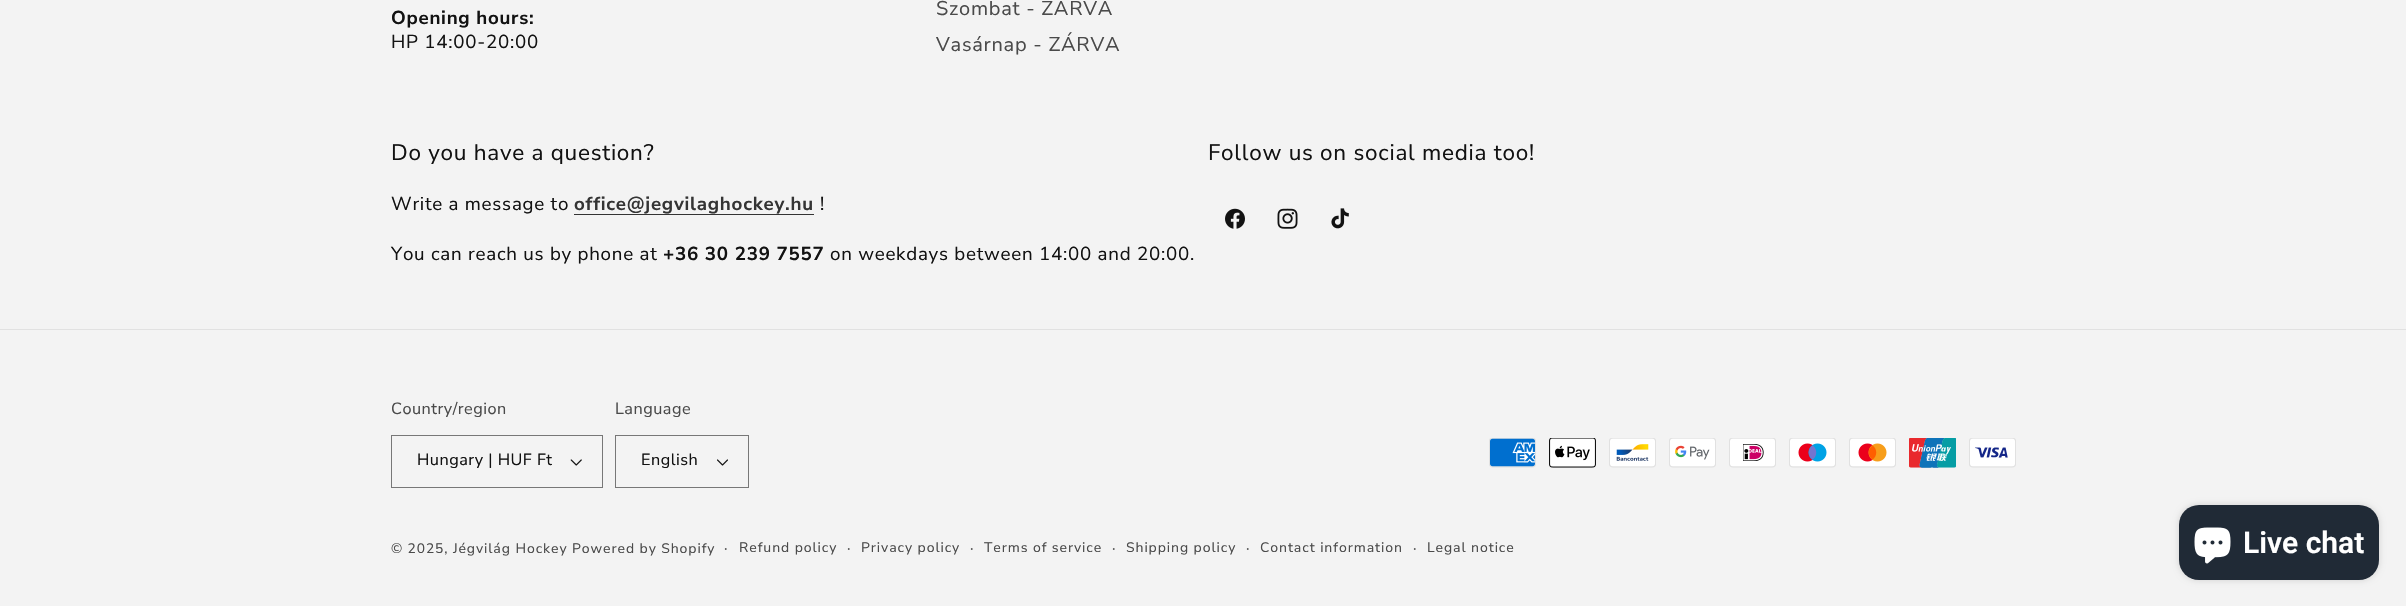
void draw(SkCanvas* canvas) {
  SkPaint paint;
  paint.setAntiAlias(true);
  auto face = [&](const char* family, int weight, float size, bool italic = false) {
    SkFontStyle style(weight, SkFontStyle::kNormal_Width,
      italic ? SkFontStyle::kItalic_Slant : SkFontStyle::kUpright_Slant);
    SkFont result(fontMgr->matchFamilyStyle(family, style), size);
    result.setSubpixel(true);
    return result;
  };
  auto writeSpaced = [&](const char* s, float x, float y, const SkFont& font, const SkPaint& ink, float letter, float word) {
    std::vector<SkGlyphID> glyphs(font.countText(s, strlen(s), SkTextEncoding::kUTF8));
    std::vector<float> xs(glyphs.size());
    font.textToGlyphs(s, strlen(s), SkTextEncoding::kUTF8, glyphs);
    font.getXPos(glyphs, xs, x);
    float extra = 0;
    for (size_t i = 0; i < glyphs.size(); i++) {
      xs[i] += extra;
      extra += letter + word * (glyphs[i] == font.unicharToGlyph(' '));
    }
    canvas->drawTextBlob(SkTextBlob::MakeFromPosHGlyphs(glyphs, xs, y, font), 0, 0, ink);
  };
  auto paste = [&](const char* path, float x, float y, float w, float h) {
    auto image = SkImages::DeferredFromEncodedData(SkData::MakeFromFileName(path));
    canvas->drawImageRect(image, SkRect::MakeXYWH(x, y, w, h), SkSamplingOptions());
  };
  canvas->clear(0xfff3f3f3);
  paint.setColor(0xff343434);
  canvas->drawRect(SkRect::MakeXYWH(574, 214, 240, 1), paint);
  paste("img/1.png", 1225, 208, 20, 21);
  paste("img/2.png", 1277, 208, 21, 21);
  paste("img/3.png", 1331, 208, 18, 21);
  paint.setColor(0xffe1e1e1);
  canvas->drawRect(SkRect::MakeXYWH(0, 329, 2406, 1), paint);
  paste("img/4.png", 570, 459, 12, 7);
  paint.setStroke(true);
  paint.setStrokeWidth(1);
  paint.setColor(0xff777777);
  canvas->drawRect(SkRect::MakeXYWH(391.5f, 435.5f, 211, 52), paint);
  paste("img/5.png", 717, 459, 11, 7);
  canvas->drawRect(SkRect::MakeXYWH(615.5f, 435.5f, 133, 52), paint);
  paste("img/6.png", 1489, 438, 47, 30);
  paste("img/7.png", 1549, 438, 47, 30);
  paste("img/8.png", 1609, 438, 47, 30);
  paste("img/9.png", 1669, 438, 47, 30);
  paste("img/10.png", 1729, 438, 47, 30);
  paste("img/11.png", 1789, 438, 47, 30);
  paste("img/12.png", 1849, 438, 47, 30);
  paste("img/13.png", 1909, 438, 47, 30);
  paste("img/14.png", 1969, 438, 47, 30);
  paint.setStroke(false);
  paint.setColor(0x26000000);
  paint.setMaskFilter(SkMaskFilter::MakeBlur(kNormal_SkBlurStyle, 3));
  canvas->drawRoundRect(SkRect::MakeXYWH(2179, 505, 200, 75), 20, 20, paint);
  paint.setMaskFilter(nullptr);
  paint.setColor(0xff202a36);
  canvas->drawRoundRect(SkRect::MakeXYWH(2179, 505, 200, 75), 20, 20, paint);
  paste("img/15.png", 2194, 527, 37, 37);
  auto f0 = face("Nunito Sans", 700, 18.75f);
  paint.setColor(0xff121212);
  writeSpaced("Opening hours:", 391, 24, f0, paint, 0.75f, 0);
  auto f1 = face("Nunito Sans", 400, 18.75f);
  writeSpaced("HP 14:00-20:00", 391, 48, f1, paint, 0.75f, 0);
  auto f2 = face("Nunito Sans", 400, 20);
  paint.setColor(0xff4a4a4a);
  writeSpaced("Szombat - ZÁRVA", 936, 15, f2, paint, 0.75f, 0);
  writeSpaced("Vasárnap - ZÁRVA", 936, 51, f2, paint, 0.75f, 0);
  auto f3 = face("Nunito Sans", 400, 22.5f);
  paint.setColor(0xff121212);
  writeSpaced("Do you have a question?", 391, 160, f3, paint, 0.75f, 0);
  writeSpaced("Write a message to", 391, 210, f1, paint, 0.75f, 0);
  paint.setColor(0xff343434);
  writeSpaced("office@jegvilaghockey.hu", 574, 210, f0, paint, 0.75f, 0);
  paint.setColor(0xff121212);
  writeSpaced("!", 820, 210, f1, paint, 0.75f, 0);
  writeSpaced("You can reach us by phone at", 391, 260, f1, paint, 0.75f, 0);
  writeSpaced("+36 30 239 7557", 663, 260, f0, paint, 0.75f, 0);
  writeSpaced("on weekdays between 14:00 and 20:00.", 830, 260, f1, paint, 0.75f, 0);
  writeSpaced("Follow us on social media too!", 1208, 160, f3, paint, 0.75f, 0);
  auto f4 = face("Nunito Sans", 400, 16.25f);
  paint.setColor(0xff4a4a4a);
  writeSpaced("Country/region", 391, 414, f4, paint, 0.5f, 0);
  paint.setColor(0xff121212);
  writeSpaced("Hungary | HUF Ft", 417, 465, f4, paint, 0.5f, 0);
  paint.setColor(0xff4a4a4a);
  writeSpaced("Language", 615, 414, f4, paint, 0.5f, 0);
  paint.setColor(0xff121212);
  writeSpaced("English", 641, 465, f4, paint, 0.5f, 0);
  auto f5 = face("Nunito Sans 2", 400, 13.75f);
  paint.setColor(0xff4a4a4a);
  writeSpaced("© 2025, Jégvilág Hockey Powered by Shopify", 391, 553, f5, paint, 0.9f, 0);
  auto f6 = face("Nunito Sans", 400, 15);
  writeSpaced("·", 724, 553, f6, paint, 0.9f, 0);
  writeSpaced("Refund policy", 739, 552, f5, paint, 0.9f, 0);
  writeSpaced("·", 847, 553, f6, paint, 0.9f, 0);
  writeSpaced("Privacy policy", 861, 552, f5, paint, 0.9f, 0);
  writeSpaced("·", 970, 553, f6, paint, 0.9f, 0);
  writeSpaced("Terms of service", 984, 552, f5, paint, 0.9f, 0);
  writeSpaced("·", 1112, 553, f6, paint, 0.9f, 0);
  writeSpaced("Shipping policy", 1126, 552, f5, paint, 0.9f, 0);
  writeSpaced("·", 1246, 553, f6, paint, 0.9f, 0);
  writeSpaced("Contact information", 1260, 552, f5, paint, 0.9f, 0);
  writeSpaced("·", 1413, 553, f6, paint, 0.9f, 0);
  writeSpaced("Legal notice", 1427, 552, f5, paint, 0.9f, 0);
  auto f7 = face("Roboto", 600, 30);
  paint.setColor(0xffffffff);
  canvas->drawString("Live chat", 2243, 553, f7, paint);
}
